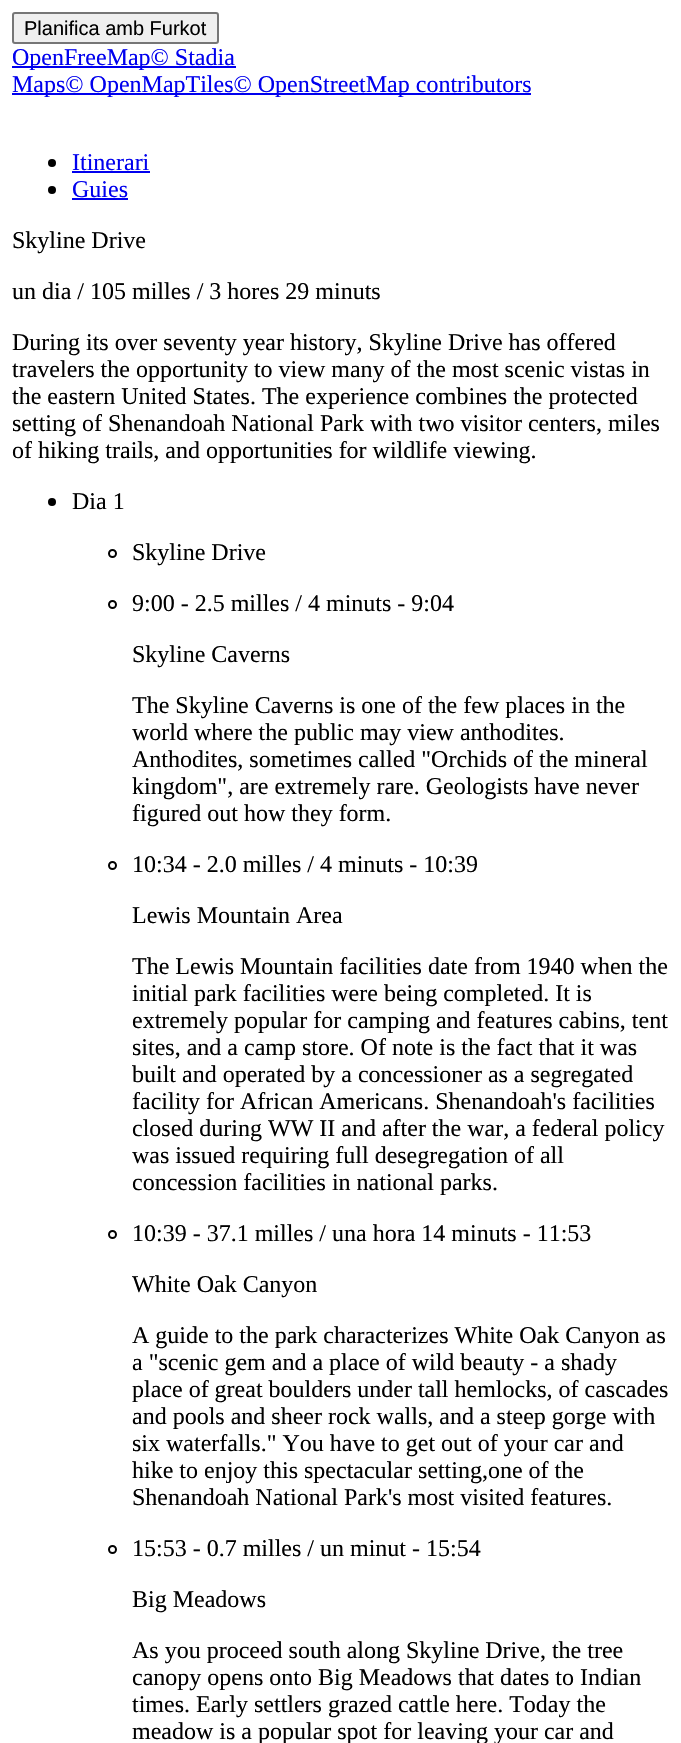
void draw(SkCanvas* canvas) {
  SkPaint paint;
  paint.setAntiAlias(true);
  auto face = [&](const char* family, int weight, float size, bool italic = false) {
    SkFontStyle style(weight, SkFontStyle::kNormal_Width,
      italic ? SkFontStyle::kItalic_Slant : SkFontStyle::kUpright_Slant);
    SkFont result(fontMgr->matchFamilyStyle(family, style), size);
    result.setSubpixel(true);
    return result;
  };
  canvas->clear(0xffffffff);
  paint.setColor(0xffefefef);
  canvas->drawRoundRect(SkRect::MakeXYWH(13, 13, 205, 30), 2, 2, paint);
  paint.setStroke(true);
  paint.setStrokeWidth(2);
  paint.setColor(0xff767676);
  canvas->drawRoundRect(SkRect::MakeXYWH(13, 13, 205, 30), 2, 2, paint);
  paint.setStroke(false);
  paint.setColor(0xff0000ee);
  canvas->drawRect(SkRect::MakeXYWH(12, 66, 224, 2), paint);
  canvas->drawRect(SkRect::MakeXYWH(12, 93, 519, 2), paint);
  paint.setColor(0xff000000);
  canvas->drawCircle(52, 163, 4, paint);
  paint.setColor(0xff0000ee);
  canvas->drawRect(SkRect::MakeXYWH(72, 171, 78, 2), paint);
  paint.setColor(0xff000000);
  canvas->drawCircle(52, 190, 4, paint);
  paint.setColor(0xff0000ee);
  canvas->drawRect(SkRect::MakeXYWH(72, 198, 56, 2), paint);
  paint.setColor(0xff000000);
  canvas->drawCircle(52, 502, 4, paint);
  paint.setStroke(true);
  canvas->drawCircle(112.5f, 553.5f, 3.5f, paint);
  canvas->drawCircle(112.5f, 604.5f, 3.5f, paint);
  canvas->drawCircle(112.5f, 865.5f, 3.5f, paint);
  canvas->drawCircle(112.5f, 1234.5f, 3.5f, paint);
  canvas->drawCircle(112.5f, 1549.5f, 3.5f, paint);
  auto f0 = face("Liberation Sans", 400, 20);
  paint.setStroke(false);
  canvas->drawString("Planifica amb Furkot", 24, 35, f0, paint);
  auto f1 = face("Liberation Serif", 400, 24);
  paint.setColor(0xff0000ee);
  {
    const struct { const char* s; float x, y; } items[] = {
      {"OpenFreeMap© Stadia", 12, 65},
      {"Maps© OpenMapTiles© OpenStreetMap contributors", 12, 92},
      {"Itinerari", 72, 170},
      {"Guies", 72, 197},
    };
    for (auto [s, x, y] : items) {
      canvas->drawString(s, x, y, f1, paint);
    }
  }
  paint.setColor(0xff000000);
  {
    const struct { const char* s; float x, y; } items[] = {
      {"Skyline Drive", 12, 248},
      {"un dia / 105 milles / 3 hores 29 minuts", 12, 299},
      {"During its over seventy year history, Skyline Drive has offered", 12, 350},
      {"travelers the opportunity to view many of the most scenic vistas in", 12, 377},
      {"the eastern United States. The experience combines the protected", 12, 404},
      {"setting of Shenandoah National Park with two visitor centers, miles", 12, 431},
      {"of hiking trails, and opportunities for wildlife viewing.", 12, 458},
      {"Dia 1", 72, 509},
      {"Skyline Drive", 132, 560},
      {"9:00 - 2.5 milles / 4 minuts - 9:04", 132, 611},
      {"Skyline Caverns", 132, 662},
      {"The Skyline Caverns is one of the few places in the", 132, 713},
      {"world where the public may view anthodites.", 132, 740},
      {"Anthodites, sometimes called \"Orchids of the mineral", 132, 767},
      {"kingdom\", are extremely rare. Geologists have never", 132, 794},
      {"figured out how they form.", 132, 821},
      {"10:34 - 2.0 milles / 4 minuts - 10:39", 132, 872},
      {"Lewis Mountain Area", 132, 923},
      {"The Lewis Mountain facilities date from 1940 when the", 132, 974},
      {"initial park facilities were being completed. It is", 132, 1001},
      {"extremely popular for camping and features cabins, tent", 132, 1028},
      {"sites, and a camp store. Of note is the fact that it was", 132, 1055},
      {"built and operated by a concessioner as a segregated", 132, 1082},
      {"facility for African Americans. Shenandoah's facilities", 132, 1109},
      {"closed during WW II and after the war, a federal policy", 132, 1136},
      {"was issued requiring full desegregation of all", 132, 1163},
      {"concession facilities in national parks.", 132, 1190},
      {"10:39 - 37.1 milles / una hora 14 minuts - 11:53", 132, 1241},
      {"White Oak Canyon", 132, 1292},
      {"A guide to the park characterizes White Oak Canyon as", 132, 1343},
      {"a \"scenic gem and a place of wild beauty - a shady", 132, 1370},
      {"place of great boulders under tall hemlocks, of cascades", 132, 1397},
      {"and pools and sheer rock walls, and a steep gorge with", 132, 1424},
      {"six waterfalls.\" You have to get out of your car and", 132, 1451},
      {"hike to enjoy this spectacular setting,one of the", 132, 1478},
      {"Shenandoah National Park's most visited features.", 132, 1505},
      {"15:53 - 0.7 milles / un minut - 15:54", 132, 1556},
      {"Big Meadows", 132, 1607},
      {"As you proceed south along Skyline Drive, the tree", 132, 1658},
      {"canopy opens onto Big Meadows that dates to Indian", 132, 1685},
      {"times. Early settlers grazed cattle here. Today the", 132, 1712},
      {"meadow is a popular spot for leaving your car and", 132, 1739},
    };
    for (auto [s, x, y] : items) {
      canvas->drawString(s, x, y, f1, paint);
    }
  }
}
